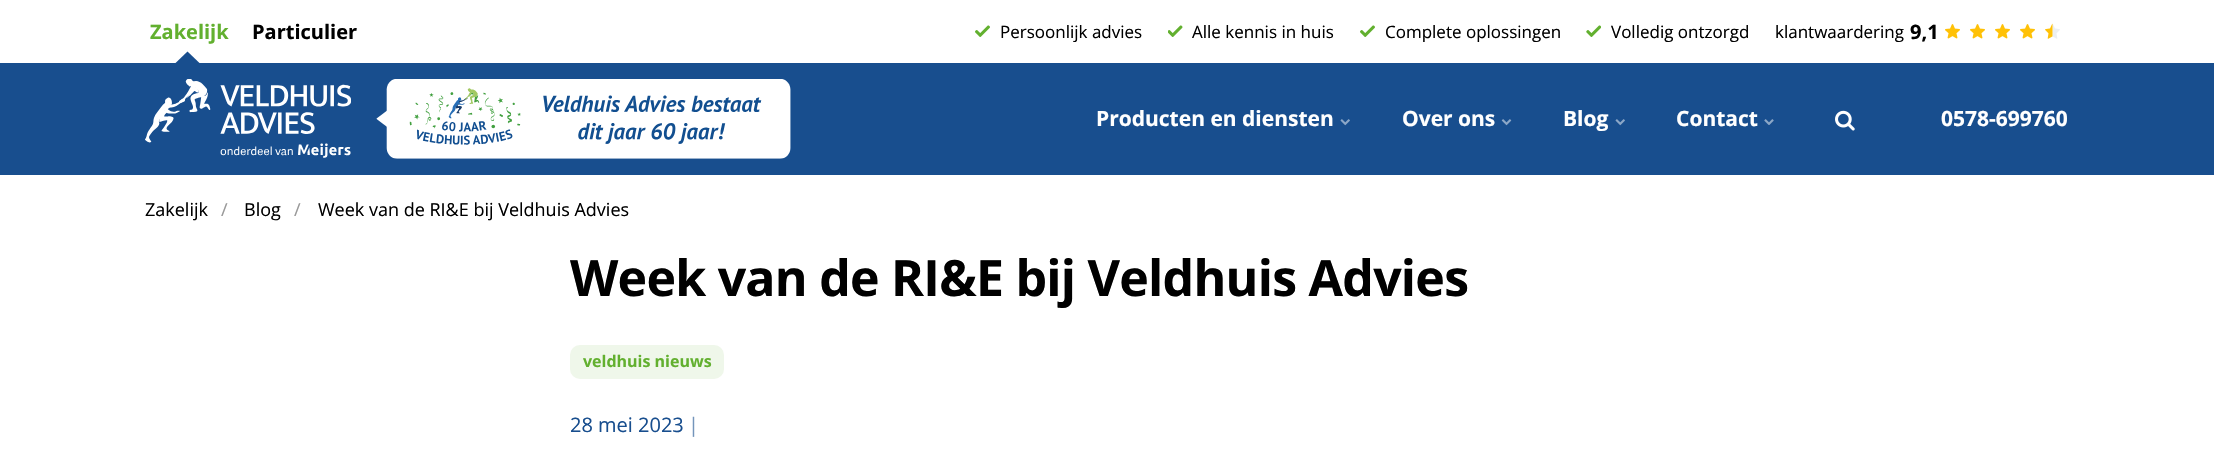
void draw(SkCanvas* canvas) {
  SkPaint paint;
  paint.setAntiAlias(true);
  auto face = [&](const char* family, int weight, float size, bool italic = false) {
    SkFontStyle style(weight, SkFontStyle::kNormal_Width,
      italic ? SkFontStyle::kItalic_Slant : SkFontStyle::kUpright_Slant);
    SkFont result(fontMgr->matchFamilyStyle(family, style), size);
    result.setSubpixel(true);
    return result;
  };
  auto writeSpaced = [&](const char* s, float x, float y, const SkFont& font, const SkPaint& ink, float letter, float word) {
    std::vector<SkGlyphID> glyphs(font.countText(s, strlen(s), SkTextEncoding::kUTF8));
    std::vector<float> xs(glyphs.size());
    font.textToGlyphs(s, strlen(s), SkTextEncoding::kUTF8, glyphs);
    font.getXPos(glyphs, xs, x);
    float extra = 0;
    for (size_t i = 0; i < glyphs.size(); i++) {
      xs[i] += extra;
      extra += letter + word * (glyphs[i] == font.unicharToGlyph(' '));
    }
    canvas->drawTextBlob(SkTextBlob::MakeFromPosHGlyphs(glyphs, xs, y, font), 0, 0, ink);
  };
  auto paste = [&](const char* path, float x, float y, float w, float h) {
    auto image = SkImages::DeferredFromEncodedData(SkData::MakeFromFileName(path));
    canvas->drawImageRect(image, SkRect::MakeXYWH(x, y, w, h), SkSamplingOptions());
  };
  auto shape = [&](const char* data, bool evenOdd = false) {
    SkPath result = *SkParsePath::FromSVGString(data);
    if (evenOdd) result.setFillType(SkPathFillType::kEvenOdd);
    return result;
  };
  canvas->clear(0xffffffff);
  paint.setColor(0xff184e8e);
  canvas->drawPath(shape("M200 63.5L187.5 51.5L175 63.5Z"), paint);
  paste("img/1.png", 975, 25, 15, 12);
  paste("img/2.png", 1168, 25, 15, 12);
  paste("img/1.png", 1360, 25, 15, 12);
  paste("img/3.png", 1586, 25, 15, 12);
  paste("img/4.png", 1945, 24, 15, 15);
  paste("img/4.png", 1970, 24, 15, 15);
  paste("img/4.png", 1995, 24, 15, 15);
  paste("img/4.png", 2020, 24, 15, 15);
  paste("img/5.png", 2045, 23, 15, 16);
  canvas->drawRect(SkRect::MakeXYWH(0, 63, 2214, 112), paint);
  paste("img/6.png", 145, 79, 206, 79);
  paste("img/7.png", 376, 79, 415, 80);
  paste("img/8.png", 1340, 119, 10, 7);
  paste("img/9.png", 1501, 119, 11, 7);
  paste("img/8.png", 1615, 119, 10, 7);
  paste("img/10.png", 1764, 119, 10, 6);
  paste("img/11.png", 1835, 110, 20, 21);
  paint.setColor(0xffeff7ea);
  canvas->drawRoundRect(SkRect::MakeXYWH(570, 345, 154, 34), 10, 10, paint);
  auto f0 = face("Open Sans", 700, 20);
  paint.setColor(0xff62b02f);
  canvas->drawString("Zakelijk", 150, 39, f0, paint);
  paint.setColor(0xff000000);
  canvas->drawString("Particulier", 252, 39, f0, paint);
  auto f1 = face("Open Sans", 400, 17);
  {
    const struct { const char* s; float x, y; } items[] = {
      {"Persoonlijk advies", 1000, 38},
      {"Alle kennis in huis", 1192, 38},
      {"Complete oplossingen", 1385, 38},
      {"Volledig ontzorgd", 1611, 38},
      {"klantwaardering", 1775, 38},
    };
    for (auto [s, x, y] : items) {
      canvas->drawString(s, x, y, f1, paint);
    }
  }
  canvas->drawString("9,1", 1910, 39, f0, paint);
  auto f2 = face("Open Sans", 700, 21);
  paint.setColor(0xffffffff);
  {
    const struct { const char* s; float x, y; } items[] = {
      {"Producten en diensten", 1096, 126},
      {"Over ons", 1402, 126},
      {"Blog", 1563, 126},
      {"Contact", 1676, 126},
      {"0578-699760", 1941, 126},
    };
    for (auto [s, x, y] : items) {
      canvas->drawString(s, x, y, f2, paint);
    }
  }
  auto f3 = face("Open Sans", 400, 18);
  paint.setColor(0xff000000);
  canvas->drawString("Zakelijk", 145, 216, f3, paint);
  paint.setColor(0xff999999);
  canvas->drawString("/", 221, 216, f3, paint);
  paint.setColor(0xff000000);
  canvas->drawString("Blog", 244, 216, f3, paint);
  paint.setColor(0xff999999);
  canvas->drawString("/", 294, 216, f3, paint);
  paint.setColor(0xff000000);
  canvas->drawString("Week van de RI&E bij Veldhuis Advies", 318, 216, f3, paint);
  auto f4 = face("Open Sans", 700, 50);
  writeSpaced("Week van de RI&E bij Veldhuis Advies", 570, 296, f4, paint, -0.75f, 0);
  auto f5 = face("Open Sans", 700, 16);
  paint.setColor(0xff62b02f);
  canvas->drawString("veldhuis nieuws", 583, 367, f5, paint);
  auto f6 = face("Open Sans", 400, 20);
  paint.setColor(0xff184e8e);
  canvas->drawString("28 mei 2023", 570, 432, f6, paint);
  paint.setColor(0xff7495bb);
  canvas->drawString("|", 688, 432, f6, paint);
}
